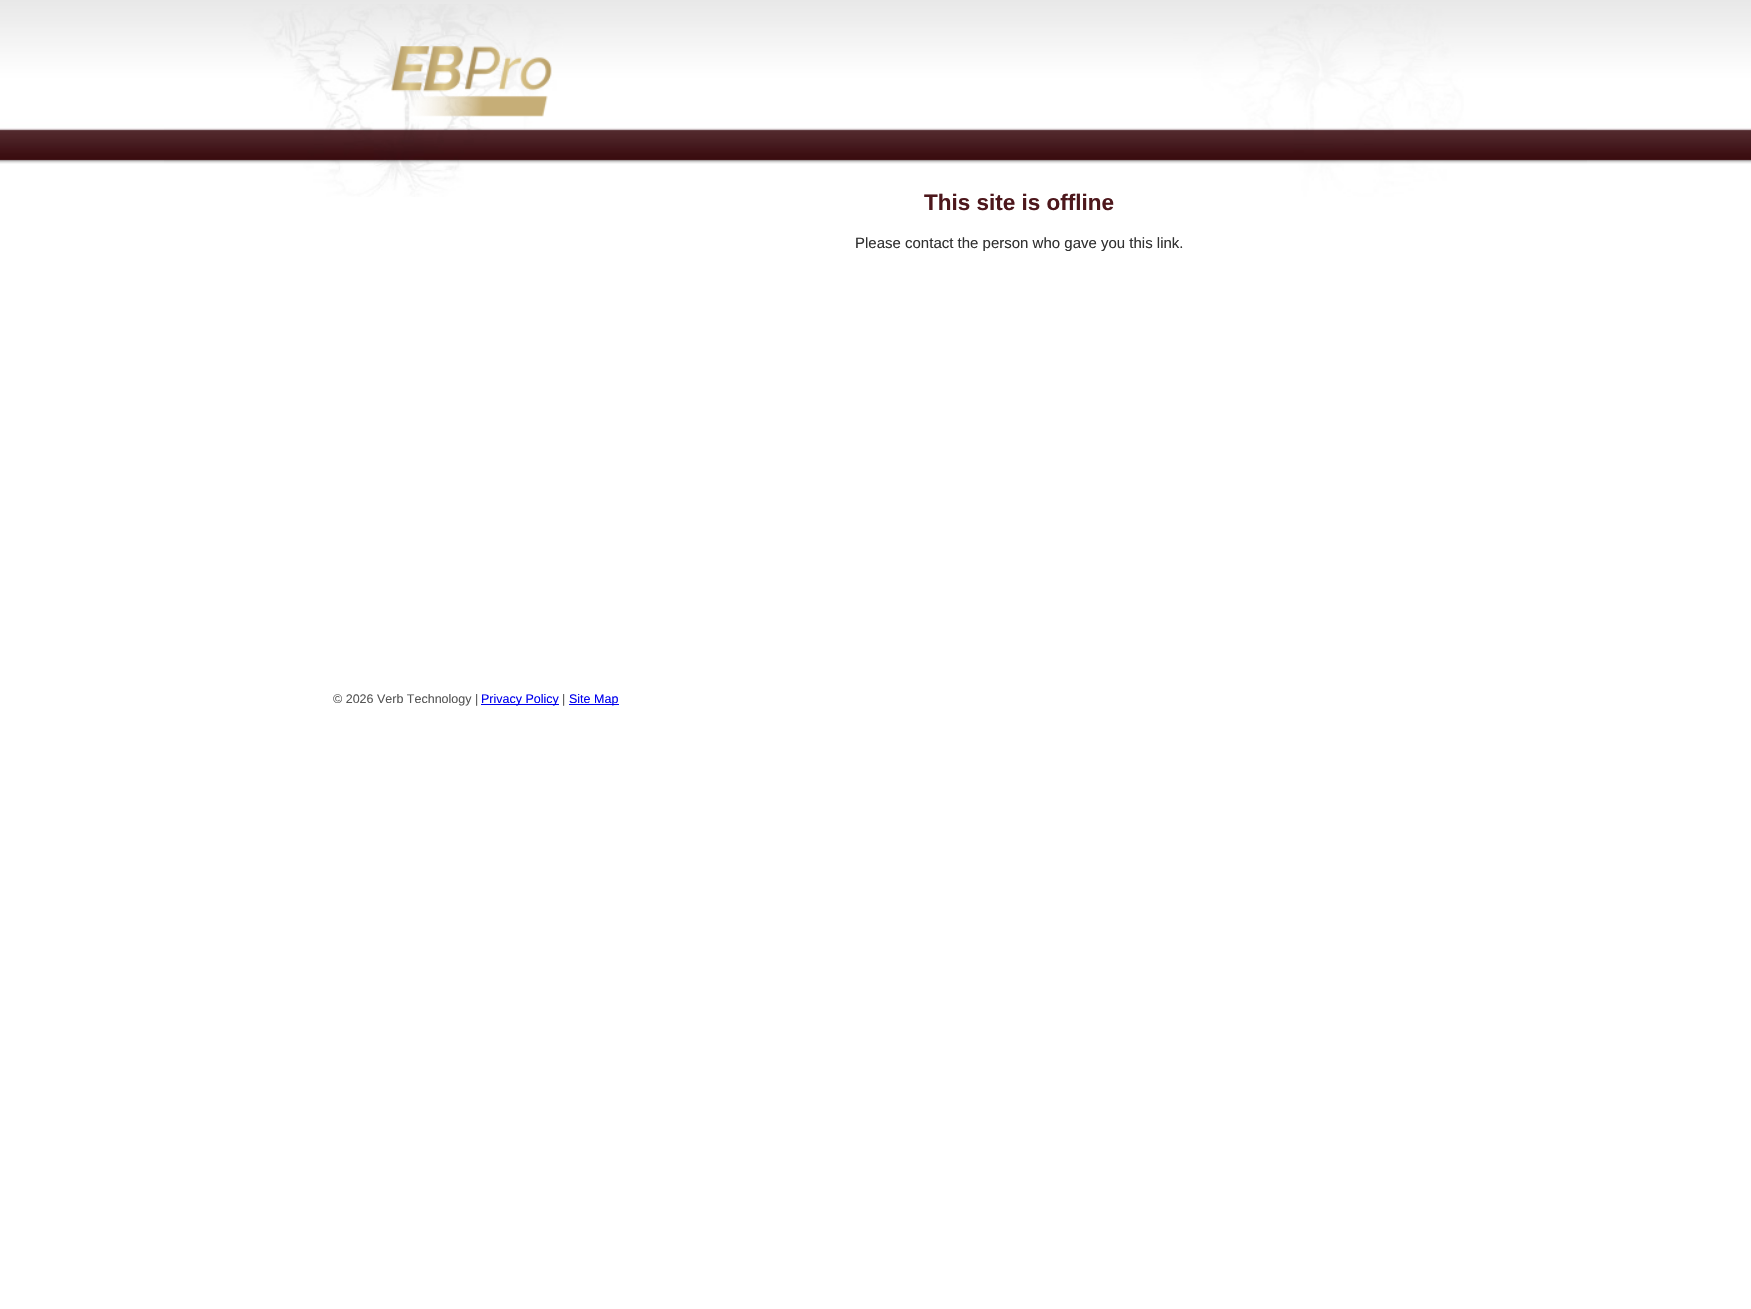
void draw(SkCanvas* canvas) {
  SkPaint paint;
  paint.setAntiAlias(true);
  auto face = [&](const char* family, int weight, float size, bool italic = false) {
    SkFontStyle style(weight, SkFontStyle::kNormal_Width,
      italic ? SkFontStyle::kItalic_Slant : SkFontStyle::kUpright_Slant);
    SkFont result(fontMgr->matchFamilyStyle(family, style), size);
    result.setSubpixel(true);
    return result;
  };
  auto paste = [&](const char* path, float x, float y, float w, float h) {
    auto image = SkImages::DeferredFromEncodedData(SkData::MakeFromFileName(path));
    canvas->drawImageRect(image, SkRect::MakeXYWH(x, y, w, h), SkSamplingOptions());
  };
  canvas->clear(0xffffffff);
  paste("img/1.png", 0, 0, 1751, 164);
  paste("img/2.png", 164, 4, 1423, 193);
  paste("img/3.png", 391, 46, 161, 71);
  paint.setColor(0xff0000ee);
  canvas->drawRect(SkRect::MakeXYWH(481, 704, 78, 1), paint);
  canvas->drawRect(SkRect::MakeXYWH(569, 704, 50, 1), paint);
  auto f0 = face("Liberation Sans", 700, 22.5f);
  paint.setColor(0xff4d171c);
  canvas->drawString("This site is offline", 924, 210, f0, paint);
  auto f1 = face("Liberation Sans", 400, 15);
  paint.setColor(0xff313131);
  canvas->drawString("Please contact the person who gave you this link.", 855, 248, f1, paint);
  auto f2 = face("Liberation Sans", 400, 12.5f);
  paint.setColor(0xff565656);
  canvas->drawString("© 2026 Verb Technology |", 333, 703, f2, paint);
  paint.setColor(0xff0000ee);
  canvas->drawString("Privacy Policy", 481, 703, f2, paint);
  paint.setColor(0xff565656);
  canvas->drawString("|", 562, 703, f2, paint);
  paint.setColor(0xff0000ee);
  canvas->drawString("Site Map", 569, 703, f2, paint);
}
